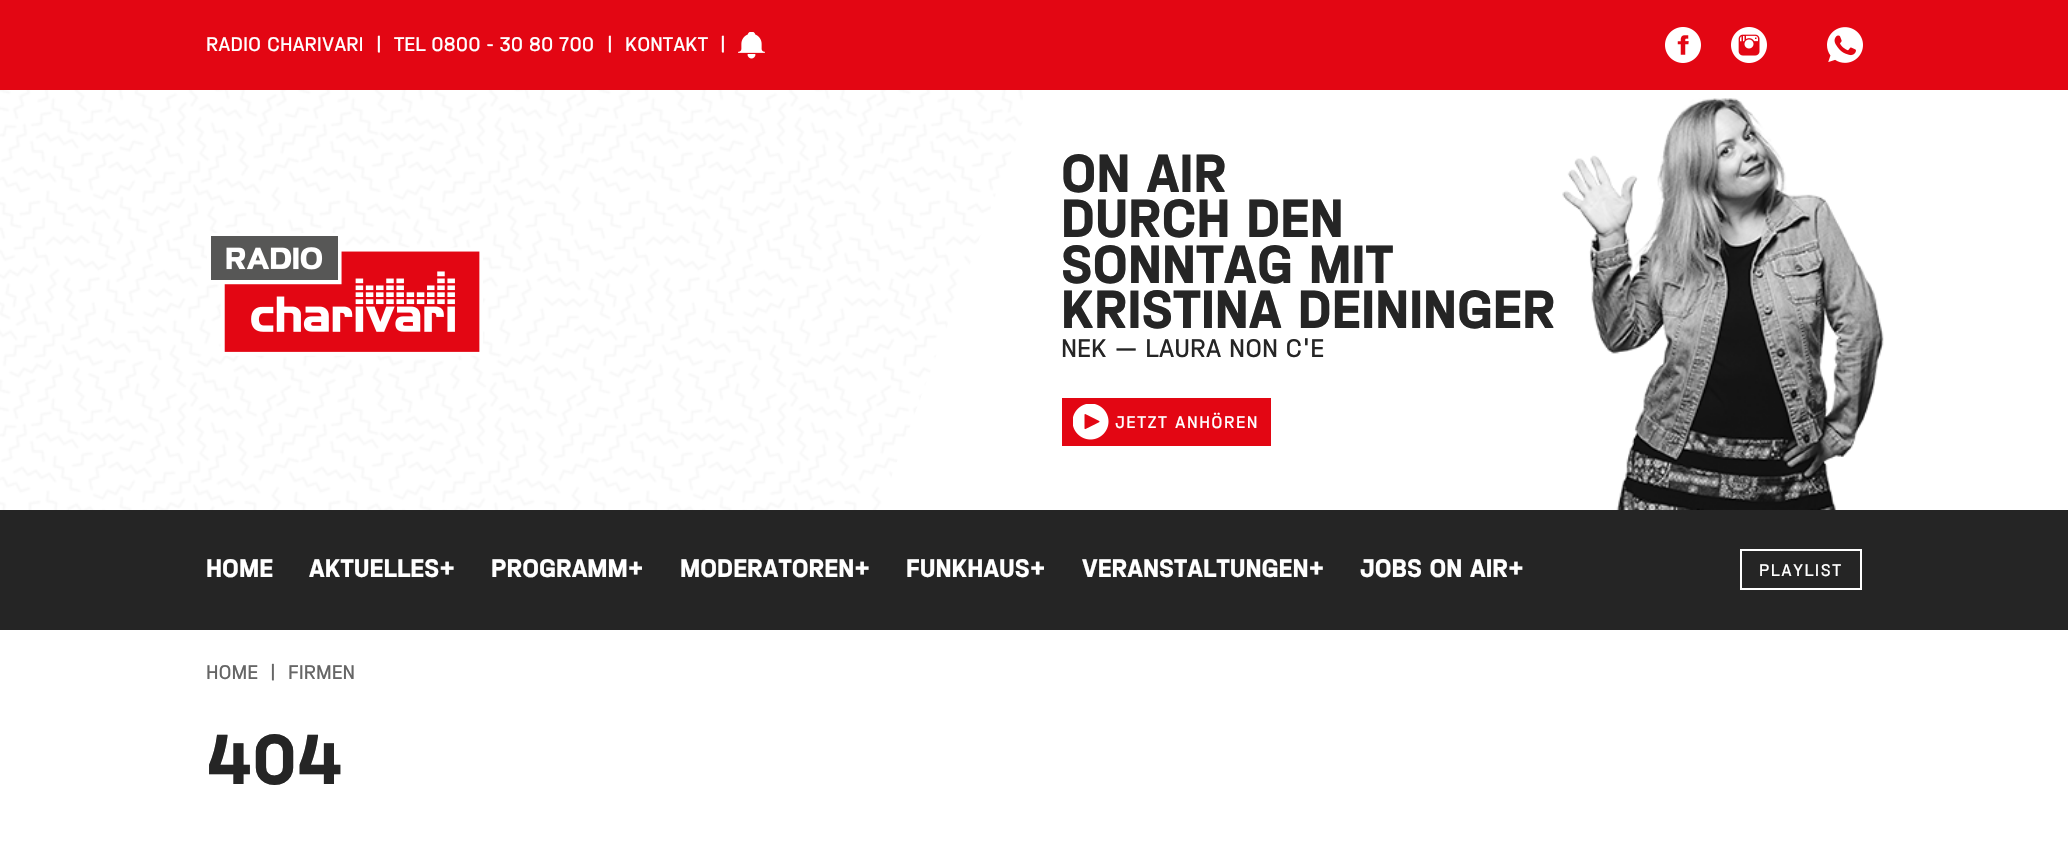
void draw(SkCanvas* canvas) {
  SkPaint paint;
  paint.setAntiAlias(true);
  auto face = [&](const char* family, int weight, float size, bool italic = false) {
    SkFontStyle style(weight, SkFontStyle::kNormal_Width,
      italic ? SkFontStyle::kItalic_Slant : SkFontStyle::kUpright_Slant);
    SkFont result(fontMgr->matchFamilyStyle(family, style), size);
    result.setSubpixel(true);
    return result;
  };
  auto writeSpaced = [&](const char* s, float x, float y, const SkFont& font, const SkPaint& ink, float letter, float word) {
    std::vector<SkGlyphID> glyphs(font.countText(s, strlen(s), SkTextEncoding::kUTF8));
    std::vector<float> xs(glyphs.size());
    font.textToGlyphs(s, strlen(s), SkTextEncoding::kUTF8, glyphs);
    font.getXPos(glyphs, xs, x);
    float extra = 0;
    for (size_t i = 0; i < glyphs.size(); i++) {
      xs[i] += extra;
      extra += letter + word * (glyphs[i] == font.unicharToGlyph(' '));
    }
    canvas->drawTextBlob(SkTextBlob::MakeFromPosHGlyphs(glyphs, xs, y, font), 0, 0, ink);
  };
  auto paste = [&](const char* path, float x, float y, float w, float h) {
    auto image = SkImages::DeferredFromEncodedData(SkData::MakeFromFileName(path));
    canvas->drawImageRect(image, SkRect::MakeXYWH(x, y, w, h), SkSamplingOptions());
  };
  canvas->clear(0xffffffff);
  paint.setColor(0xffe30613);
  canvas->drawRect(SkRect::MakeXYWH(0, 0, 2068, 90), paint);
  paste("img/1.png", 738, 32, 27, 27);
  paste("img/2.png", 1665, 27, 36, 36);
  paste("img/3.png", 1731, 27, 36, 36);
  paste("img/4.png", 1827, 27, 36, 36);
  paste("img/5.png", 0, 90, 1023, 420);
  paste("img/6.png", 207, 233, 276, 123);
  canvas->drawRect(SkRect::MakeXYWH(1062, 398, 209, 48), paint);
  paste("img/7.png", 1073, 404, 36, 36);
  paste("img/8.png", 1562, 98, 322, 412);
  paint.setColor(0xff252525);
  canvas->drawRect(SkRect::MakeXYWH(0, 510, 2068, 120), paint);
  paint.setStroke(true);
  paint.setStrokeWidth(2);
  paint.setColor(0xffffffff);
  canvas->drawRect(SkRect::MakeXYWH(1741, 550, 120, 39), paint);
  auto f0 = face("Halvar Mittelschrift", 400, 21);
  paint.setStroke(false);
  canvas->drawString("RADIO CHARIVARI", 206, 51, f0, paint);
  canvas->drawString("|", 376, 51, f0, paint);
  writeSpaced("TEL 0800 - 30 80 700", 394, 51, f0, paint, 0, -0.25f);
  {
    const struct { const char* s; float x, y; } items[] = {
      {"|", 607, 51},
      {"KONTAKT", 625, 51},
      {"|", 720, 51},
    };
    for (auto [s, x, y] : items) {
      canvas->drawString(s, x, y, f0, paint);
    }
  }
  auto f1 = face("Halvar Mittelschrift", 700, 57);
  paint.setColor(0xff252525);
  {
    const struct { const char* s; float x, y; } items[] = {
      {"ON AIR", 1061, 192},
      {"DURCH DEN", 1061, 237},
      {"SONNTAG MIT", 1061, 283},
      {"KRISTINA DEININGER", 1061, 328},
    };
    for (auto [s, x, y] : items) {
      canvas->drawString(s, x, y, f1, paint);
    }
  }
  auto f2 = face("Halvar Mittelschrift", 400, 27);
  canvas->drawString("NEK — LAURA NON C'E", 1061, 357, f2, paint);
  auto f3 = face("Halvar Mittelschrift", 400, 18);
  paint.setColor(0xffffffff);
  writeSpaced("JETZT ANHÖREN", 1115, 428, f3, paint, 1.5f, 0);
  auto f4 = face("Halvar Mittelschrift", 700, 27);
  {
    const struct { const char* s; float x, y; } items[] = {
      {"HOME", 206, 577},
      {"AKTUELLES+", 309, 577},
      {"PROGRAMM+", 491, 577},
      {"MODERATOREN+", 680, 577},
      {"FUNKHAUS+", 906, 577},
      {"VERANSTALTUNGEN+", 1082, 577},
      {"JOBS ON AIR+", 1360, 577},
    };
    for (auto [s, x, y] : items) {
      canvas->drawString(s, x, y, f4, paint);
    }
  }
  writeSpaced("PLAYLIST", 1759, 576, f3, paint, 1.5f, 0);
  paint.setColor(0xff666666);
  {
    const struct { const char* s; float x, y; } items[] = {
      {"HOME", 206, 679},
      {"|", 270, 679},
      {"FIRMEN", 288, 679},
    };
    for (auto [s, x, y] : items) {
      canvas->drawString(s, x, y, f0, paint);
    }
  }
  auto f5 = face("Halvar Mittelschrift", 700, 75);
  paint.setColor(0xff252525);
  canvas->drawString("404", 206, 784, f5, paint);
}
